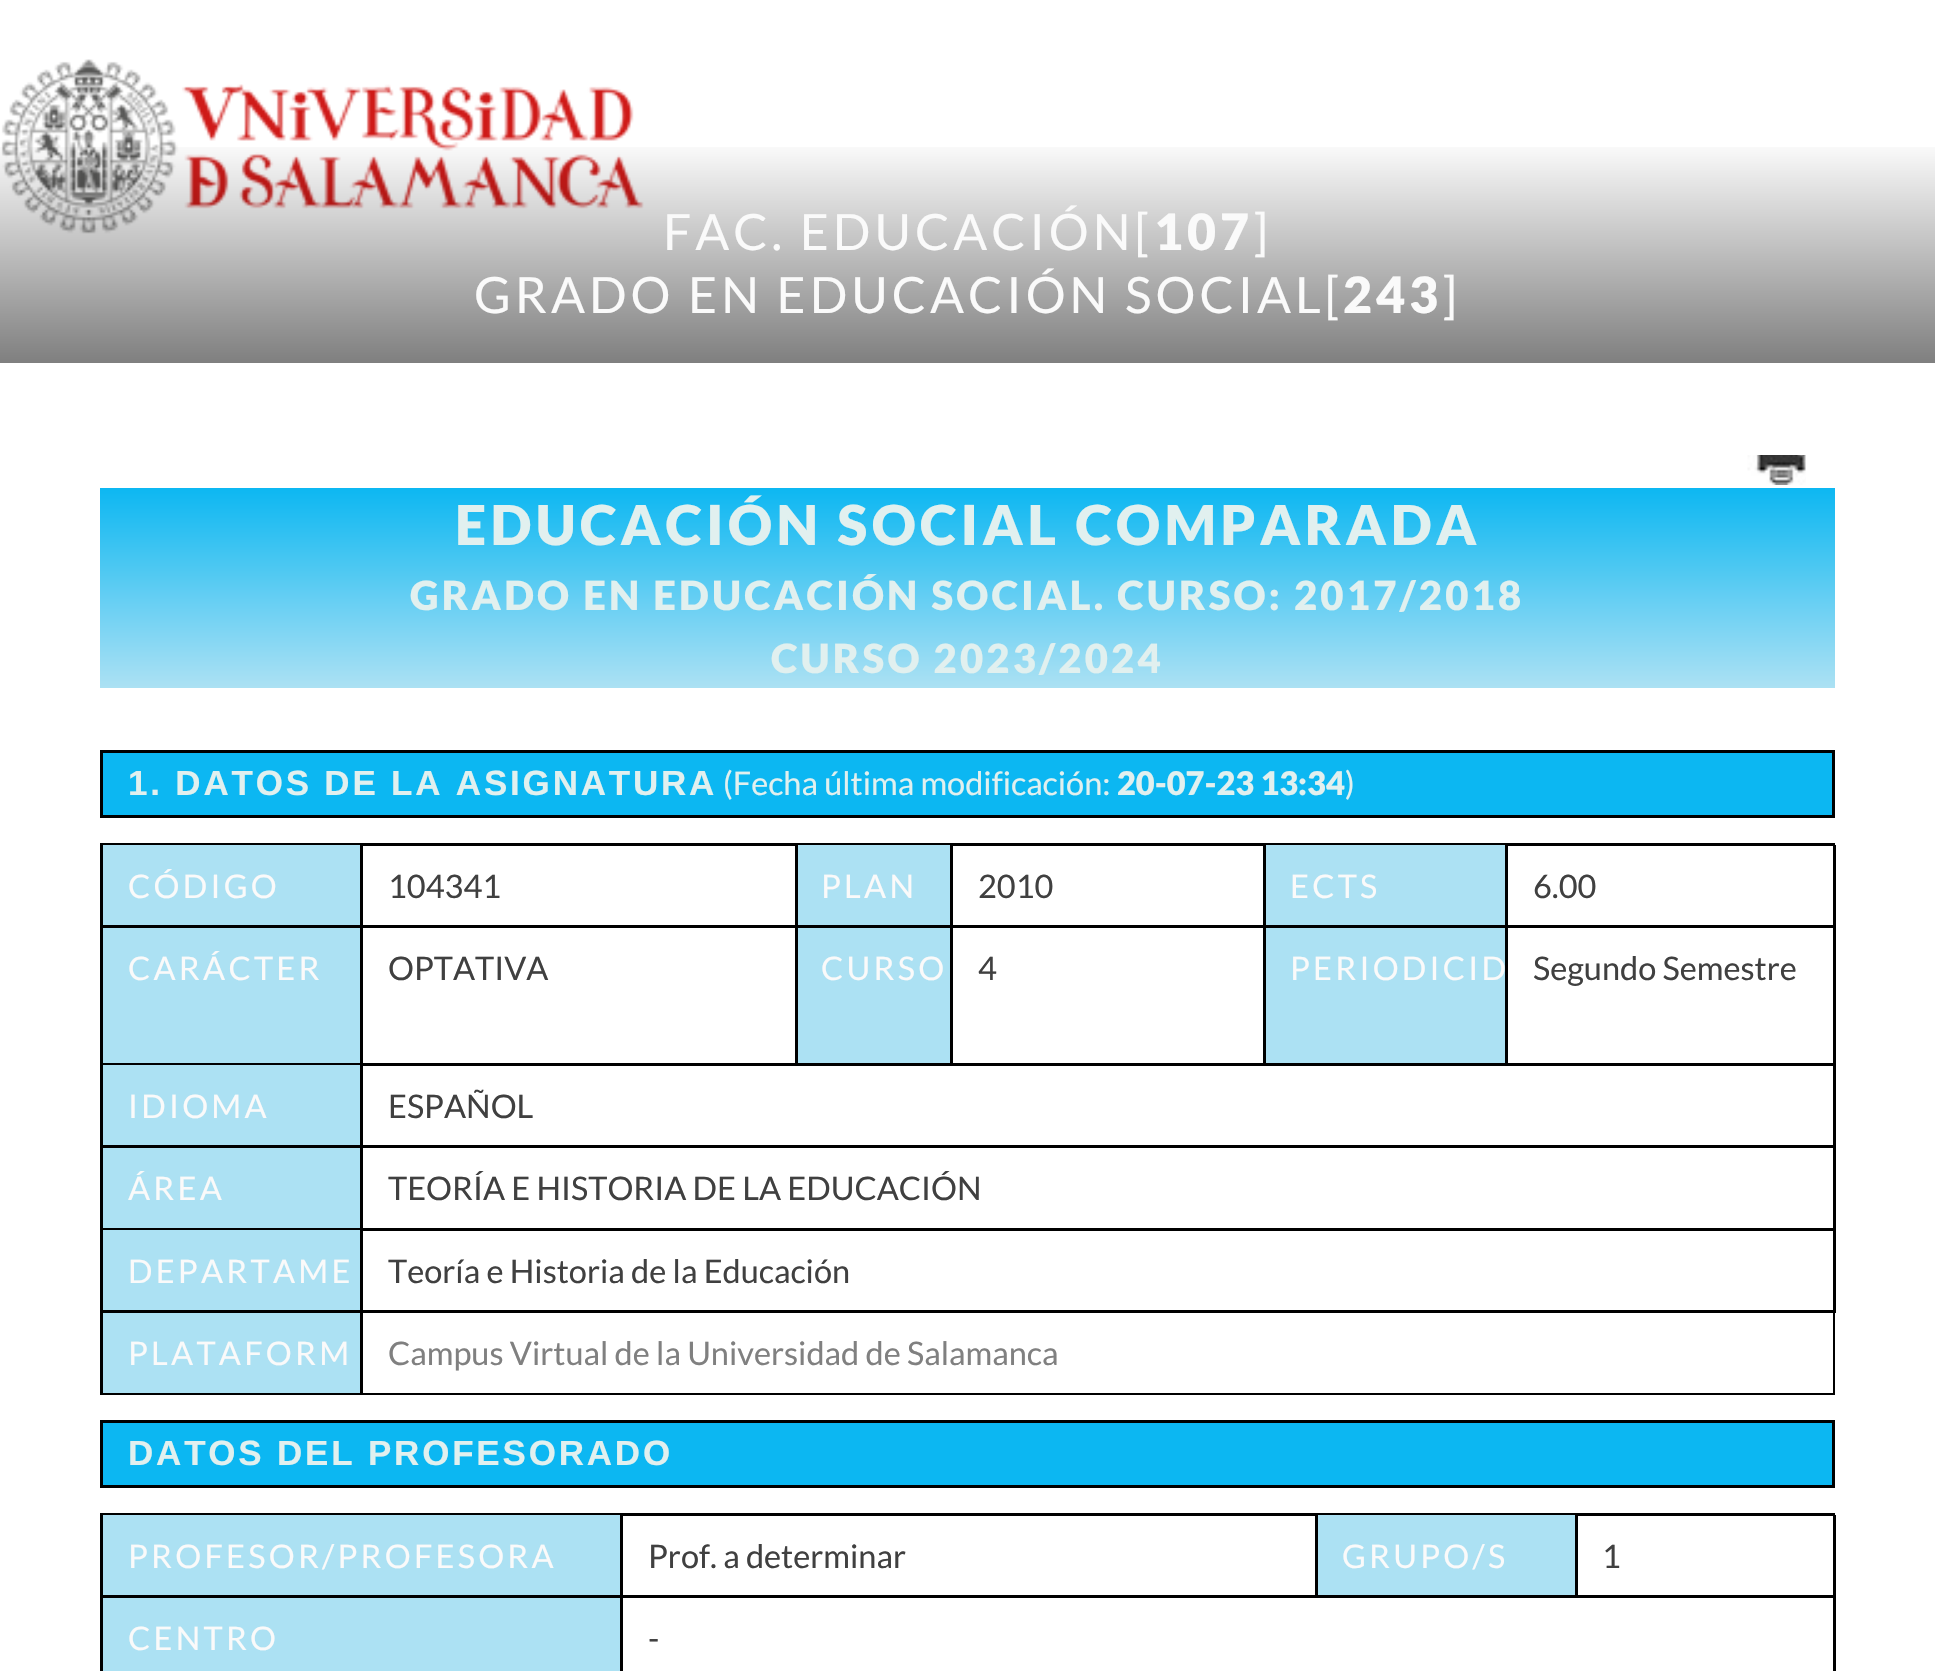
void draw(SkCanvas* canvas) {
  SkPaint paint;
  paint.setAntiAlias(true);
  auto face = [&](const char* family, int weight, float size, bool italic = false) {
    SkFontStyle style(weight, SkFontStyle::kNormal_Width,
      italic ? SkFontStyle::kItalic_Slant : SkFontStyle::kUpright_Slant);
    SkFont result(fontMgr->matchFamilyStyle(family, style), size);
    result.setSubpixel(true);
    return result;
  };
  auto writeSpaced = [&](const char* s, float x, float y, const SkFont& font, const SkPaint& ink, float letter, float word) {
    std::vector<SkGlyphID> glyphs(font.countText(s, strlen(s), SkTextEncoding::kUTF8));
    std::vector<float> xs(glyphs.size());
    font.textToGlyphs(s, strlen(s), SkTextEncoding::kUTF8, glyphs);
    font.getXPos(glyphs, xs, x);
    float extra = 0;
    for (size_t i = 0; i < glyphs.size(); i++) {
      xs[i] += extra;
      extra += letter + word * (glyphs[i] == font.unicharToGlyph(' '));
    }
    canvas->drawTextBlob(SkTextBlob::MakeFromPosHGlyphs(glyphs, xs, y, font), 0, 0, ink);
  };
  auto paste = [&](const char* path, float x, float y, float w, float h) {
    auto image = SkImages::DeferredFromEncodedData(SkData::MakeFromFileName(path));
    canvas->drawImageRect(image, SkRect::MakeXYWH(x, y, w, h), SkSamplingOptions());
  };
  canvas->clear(0xffffffff);
  paste("img/1.png", 1, 59, 643, 175);
  {
    const SkColor colors[] = {0x00000000, 0x80000000};
    const float stops[] = {0, 1};
    const SkPoint ends[] = {{968, 137}, {968, 363}};
    paint.setShader(SkGradientShader::MakeLinear(ends, colors, stops, 2, SkTileMode::kClamp));
    paint.setAlpha(255);
  }
  canvas->drawRect(SkRect::MakeXYWH(0, 147, 1935, 216), paint);
  paste("img/2.png", 1747, 455, 59, 30);
  {
    const SkColor colors[] = {0xff0cb7f2, 0xfface1f3};
    const float stops[] = {0, 1};
    const SkPoint ends[] = {{968, 487}, {968, 688}};
    paint.setShader(SkGradientShader::MakeLinear(ends, colors, stops, 2, SkTileMode::kClamp));
    paint.setAlpha(255);
  }
  canvas->drawRect(SkRect::MakeXYWH(100, 488, 1735, 200), paint);
  paint.setShader(nullptr);
  paint.setColor(0xff0cb7f2);
  canvas->drawRect(SkRect::MakeXYWH(101.5f, 751.5f, 1732, 65), paint);
  paint.setStroke(true);
  paint.setStrokeWidth(3);
  paint.setColor(0xff000000);
  canvas->drawRect(SkRect::MakeXYWH(101.5f, 751.5f, 1732, 65), paint);
  paint.setStroke(false);
  {
    const struct { float x, y, w, h; SkColor color; } items[] = {
      {100, 843, 1735, 3, 0xff000000},
      {103, 845, 257, 80, 0xfface1f3},
      {100, 925, 1405, 3, 0xff000000},
      {100, 845, 3, 83, 0xff000000},
      {360, 845, 3, 83, 0xff000000},
      {798, 845, 152, 80, 0xfface1f3},
      {795, 845, 3, 83, 0xff000000},
      {950, 845, 3, 83, 0xff000000},
      {1266, 845, 239, 80, 0xfface1f3},
      {1263, 845, 3, 83, 0xff000000},
      {1833, 845, 3, 220, 0xff000000},
      {1505, 925, 330, 3, 0xff000000},
      {1505, 845, 3, 83, 0xff000000},
      {103, 928, 257, 135, 0xfface1f3},
      {100, 1063, 260, 2, 0xff000000},
      {100, 928, 3, 137, 0xff000000},
      {360, 1063, 1475, 3, 0xff000000},
      {360, 928, 3, 137, 0xff000000},
      {798, 928, 152, 135, 0xfface1f3},
      {795, 928, 3, 137, 0xff000000},
      {950, 928, 3, 137, 0xff000000},
      {1266, 928, 239, 135, 0xfface1f3},
      {1263, 928, 3, 137, 0xff000000},
      {1505, 928, 3, 137, 0xff000000},
      {103, 1065, 257, 80, 0xfface1f3},
      {100, 1145, 260, 3, 0xff000000},
      {100, 1065, 3, 83, 0xff000000},
      {1833, 1065, 3, 165, 0xff000000},
      {360, 1145, 1475, 3, 0xff000000},
      {360, 1065, 3, 83, 0xff000000},
      {103, 1148, 257, 80, 0xfface1f3},
      {100, 1228, 260, 2, 0xff000000},
      {100, 1148, 3, 82, 0xff000000},
      {360, 1228, 1475, 3, 0xff000000},
      {360, 1148, 3, 82, 0xff000000},
      {103, 1230, 257, 80, 0xfface1f3},
      {100, 1310, 260, 3, 0xff000000},
      {100, 1230, 3, 83, 0xff000000},
      {1833, 1230, 3, 83, 0xff000000},
      {360, 1310, 1475, 3, 0xff000000},
      {360, 1230, 3, 83, 0xff000000},
      {103, 1313, 257, 80, 0xfface1f3},
      {100, 1393, 260, 2, 0xff000000},
      {100, 1313, 3, 82, 0xff000000},
      {1833, 1313, 2, 82, 0xff000000},
      {360, 1393, 1475, 2, 0xff000000},
      {360, 1313, 3, 82, 0xff000000},
    };
    for (auto [x, y, w, h, color] : items) {
      paint.setColor(color);
      canvas->drawRect(SkRect::MakeXYWH(x, y, w, h), paint);
    }
  }
  paint.setColor(0xff0cb7f2);
  canvas->drawRect(SkRect::MakeXYWH(101.5f, 1421.5f, 1732, 65), paint);
  paint.setStroke(true);
  paint.setColor(0xff000000);
  canvas->drawRect(SkRect::MakeXYWH(101.5f, 1421.5f, 1732, 65), paint);
  paint.setStroke(false);
  {
    const struct { float x, y, w, h; SkColor color; } items[] = {
      {100, 1513, 1735, 3, 0xff000000},
      {103, 1515, 517, 80, 0xfface1f3},
      {100, 1595, 1475, 3, 0xff000000},
      {100, 1515, 3, 156, 0xff000000},
      {620, 1515, 3, 156, 0xff000000},
      {1318, 1515, 257, 80, 0xfface1f3},
      {1315, 1515, 3, 83, 0xff000000},
      {1833, 1515, 3, 156, 0xff000000},
      {1575, 1595, 260, 3, 0xff000000},
      {1575, 1515, 3, 83, 0xff000000},
      {103, 1598, 517, 73, 0xfface1f3},
    };
    for (auto [x, y, w, h, color] : items) {
      paint.setColor(color);
      canvas->drawRect(SkRect::MakeXYWH(x, y, w, h), paint);
    }
  }
  auto f0 = face("Lato", 400, 50);
  paint.setColor(0xfffafafa);
  writeSpaced("FAC. EDUCACIÓN[", 663, 250, f0, paint, 4, 0);
  auto f1 = face("Lato", 900, 50);
  writeSpaced("107", 1154, 250, f1, paint, 4, 0);
  writeSpaced("]", 1253, 250, f0, paint, 4, 0);
  writeSpaced("GRADO EN EDUCACIÓN SOCIAL[", 474, 313, f0, paint, 4, 0);
  writeSpaced("243", 1343, 313, f1, paint, 4, 0);
  writeSpaced("]", 1442, 313, f0, paint, 4, 0);
  auto f2 = face("Lato", 900, 55);
  paint.setColor(0xffe1f0ef);
  writeSpaced("EDUCACIÓN SOCIAL COMPARADA", 455, 545, f2, paint, 4.4f, 0);
  auto f3 = face("Lato", 900, 40);
  writeSpaced("GRADO EN EDUCACIÓN SOCIAL. CURSO: 2017/2018", 410, 610, f3, paint, 3.2f, 0);
  writeSpaced("CURSO 2023/2024", 771, 673, f3, paint, 3.2f, 0);
  auto f4 = face("Liberation Sans", 700, 35);
  writeSpaced("1. DATOS DE LA ASIGNATURA", 128, 795, f4, paint, 2.8f, 0);
  auto f5 = face("Lato", 400, 32.5f);
  canvas->drawString("(Fecha última modificación:", 723, 795, f5, paint);
  auto f6 = face("Lato", 900, 32.5f);
  canvas->drawString("20-07-23 13:34", 1117, 795, f6, paint);
  canvas->drawString(")", 1345, 795, f5, paint);
  paint.setColor(0xfffafafa);
  writeSpaced("CÓDIGO", 128, 898, f5, paint, 3.25f, 0);
  paint.setColor(0xff404040);
  canvas->drawString("104341", 388, 898, f5, paint);
  paint.setColor(0xfffafafa);
  writeSpaced("PLAN", 821, 898, f5, paint, 3.25f, 0);
  paint.setColor(0xff404040);
  canvas->drawString("2010", 978, 898, f5, paint);
  paint.setColor(0xfffafafa);
  writeSpaced("ECTS", 1290, 898, f5, paint, 3.25f, 0);
  paint.setColor(0xff404040);
  canvas->drawString("6.00", 1533, 898, f5, paint);
  paint.setColor(0xfffafafa);
  writeSpaced("CARÁCTER", 128, 980, f5, paint, 3.25f, 0);
  paint.setColor(0xff404040);
  canvas->drawString("OPTATIVA", 388, 980, f5, paint);
  paint.setColor(0xfffafafa);
  writeSpaced("CURSO", 821, 980, f5, paint, 3.25f, 0);
  paint.setColor(0xff404040);
  canvas->drawString("4", 978, 980, f5, paint);
  paint.setColor(0xfffafafa);
  writeSpaced("PERIODICID", 1290, 980, f5, paint, 3.25f, 0);
  paint.setColor(0xff404040);
  canvas->drawString("Segundo Semestre", 1533, 980, f5, paint);
  paint.setColor(0xfffafafa);
  writeSpaced("IDIOMA", 128, 1118, f5, paint, 3.25f, 0);
  paint.setColor(0xff404040);
  canvas->drawString("ESPAÑOL", 388, 1118, f5, paint);
  paint.setColor(0xfffafafa);
  writeSpaced("ÁREA", 128, 1200, f5, paint, 3.25f, 0);
  paint.setColor(0xff404040);
  canvas->drawString("TEORÍA E HISTORIA DE LA EDUCACIÓN", 388, 1200, f5, paint);
  paint.setColor(0xfffafafa);
  writeSpaced("DEPARTAME", 128, 1283, f5, paint, 3.25f, 0);
  paint.setColor(0xff404040);
  canvas->drawString("Teoría e Historia de la Educación", 388, 1283, f5, paint);
  paint.setColor(0xfffafafa);
  writeSpaced("PLATAFORM", 128, 1365, f5, paint, 3.25f, 0);
  paint.setColor(0xff808080);
  canvas->drawString("Campus Virtual de la Universidad de Salamanca", 388, 1365, f5, paint);
  paint.setColor(0xffe1f0ef);
  writeSpaced("DATOS DEL PROFESORADO", 128, 1465, f4, paint, 2.8f, 0);
  paint.setColor(0xfffafafa);
  writeSpaced("PROFESOR/PROFESORA", 128, 1568, f5, paint, 3.25f, 0);
  paint.setColor(0xff404040);
  canvas->drawString("Prof. a determinar", 648, 1568, f5, paint);
  paint.setColor(0xfffafafa);
  writeSpaced("GRUPO/S", 1342, 1568, f5, paint, 3.25f, 0);
  paint.setColor(0xff404040);
  canvas->drawString("1", 1602, 1568, f5, paint);
  paint.setColor(0xfffafafa);
  writeSpaced("CENTRO", 128, 1650, f5, paint, 3.25f, 0);
  paint.setColor(0xff404040);
  canvas->drawString("-", 648, 1650, f5, paint);
}
